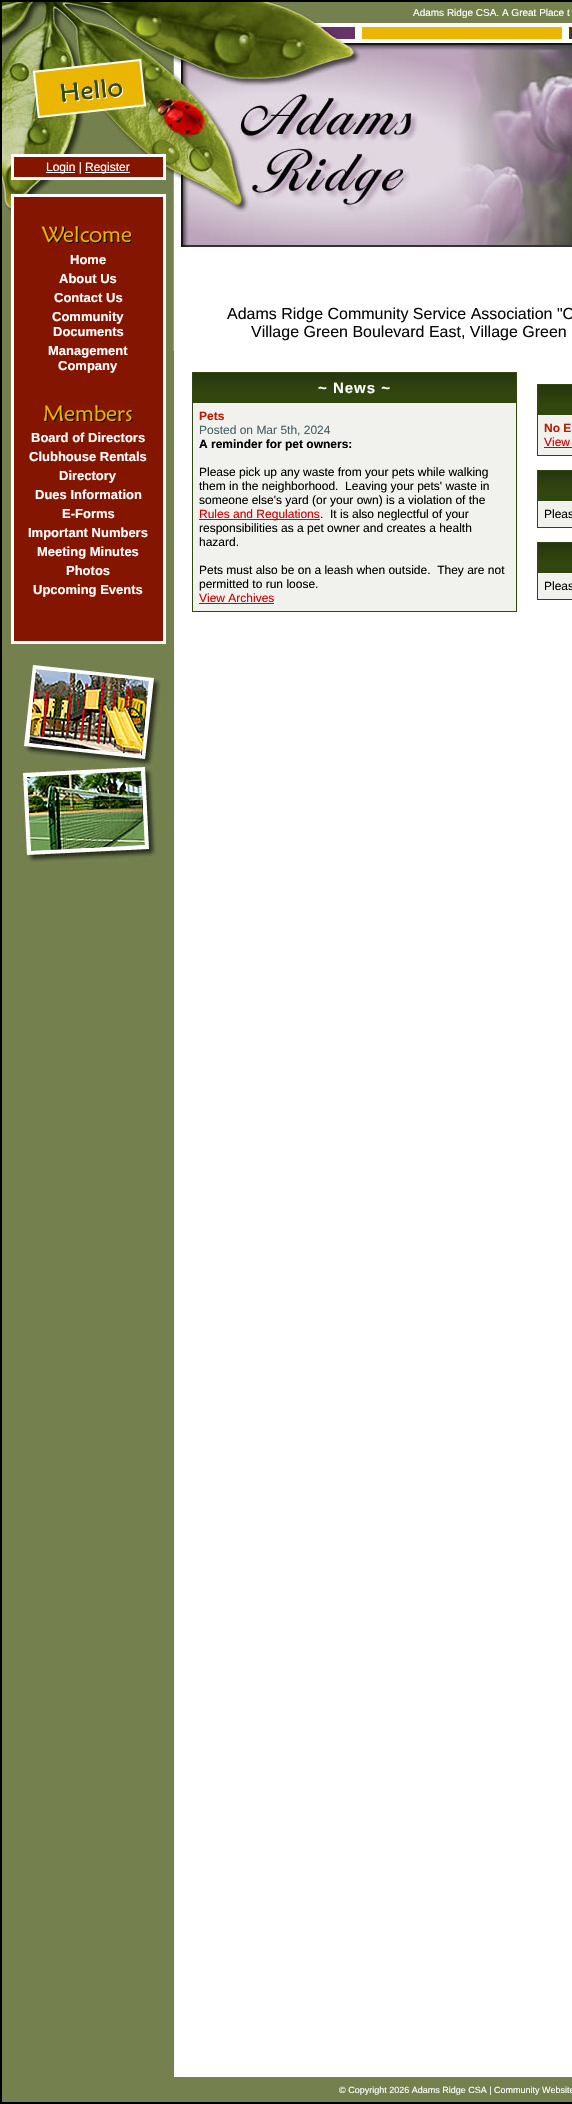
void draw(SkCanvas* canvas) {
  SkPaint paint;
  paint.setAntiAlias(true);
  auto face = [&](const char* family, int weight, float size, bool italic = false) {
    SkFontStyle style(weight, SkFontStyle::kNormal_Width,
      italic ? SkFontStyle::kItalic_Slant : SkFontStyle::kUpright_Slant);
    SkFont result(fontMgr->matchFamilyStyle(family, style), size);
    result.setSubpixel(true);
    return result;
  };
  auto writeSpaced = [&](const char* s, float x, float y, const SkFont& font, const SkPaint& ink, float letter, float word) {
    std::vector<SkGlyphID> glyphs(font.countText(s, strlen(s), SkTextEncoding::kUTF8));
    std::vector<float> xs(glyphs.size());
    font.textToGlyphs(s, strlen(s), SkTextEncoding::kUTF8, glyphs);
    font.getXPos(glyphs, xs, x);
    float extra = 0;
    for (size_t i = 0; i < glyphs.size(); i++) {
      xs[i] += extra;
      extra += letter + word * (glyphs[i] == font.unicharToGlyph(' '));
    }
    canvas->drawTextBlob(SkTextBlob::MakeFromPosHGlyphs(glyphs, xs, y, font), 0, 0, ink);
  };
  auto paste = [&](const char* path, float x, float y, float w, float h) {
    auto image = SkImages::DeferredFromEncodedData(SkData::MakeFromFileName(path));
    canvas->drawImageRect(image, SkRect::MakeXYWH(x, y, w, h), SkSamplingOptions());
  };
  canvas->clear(0xff74804e);
  paint.setStroke(true);
  paint.setStrokeWidth(2);
  paint.setColor(0xff000000);
  canvas->drawRect(SkRect::MakeXYWH(1, 1, 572, 2102), paint);
  paste("img/1.png", 2, 2, 172, 152);
  paste("img/2.png", 2, 154, 172, 197);
  paint.setStroke(false);
  {
    const struct { float x, y, w, h; SkColor color; } items[] = {
      {11, 154, 155, 26, 0xffffffff},
      {14, 157, 149, 20, 0xff841501},
      {46, 172, 29, 1, 0xffffffff},
      {85, 172, 45, 1, 0xffffffff},
      {11, 194, 155, 450, 0xffffffff},
      {14, 197, 149, 444, 0xff841501},
    };
    for (auto [x, y, w, h, color] : items) {
      paint.setColor(color);
      canvas->drawRect(SkRect::MakeXYWH(x, y, w, h), paint);
    }
  }
  paste("img/3.png", 41, 226, 92, 18);
  paste("img/4.png", 43, 405, 90, 18);
  paste("img/5.png", 21, 664, 140, 200);
  paint.setColor(0xffffffff);
  canvas->drawRect(SkRect::MakeXYWH(174, 247, 398, 1830), paint);
  paste("img/6.png", 174, 2, 398, 21);
  paste("img/7.png", 174, 23, 398, 224);
  paint.setColor(0xff32470f);
  canvas->drawRect(SkRect::MakeXYWH(192, 372, 325, 240), paint);
  paste("img/8.png", 193, 373, 323, 29);
  {
    const struct { float x, y, w, h; SkColor color; } items[] = {
      {193, 403, 323, 208, 0xfff1f1ed},
      {199, 519, 121, 1, 0xffce0000},
      {199, 603, 75, 1, 0xffce0000},
      {537, 384, 35, 72, 0xff32470f},
    };
    for (auto [x, y, w, h, color] : items) {
      paint.setColor(color);
      canvas->drawRect(SkRect::MakeXYWH(x, y, w, h), paint);
    }
  }
  paste("img/9.png", 538, 385, 34, 29);
  {
    const struct { float x, y, w, h; SkColor color; } items[] = {
      {538, 415, 34, 40, 0xfff1f1ed},
      {544, 447, 28, 1, 0xffce0000},
      {537, 470, 35, 58, 0xff32470f},
    };
    for (auto [x, y, w, h, color] : items) {
      paint.setColor(color);
      canvas->drawRect(SkRect::MakeXYWH(x, y, w, h), paint);
    }
  }
  paste("img/9.png", 538, 471, 34, 29);
  paint.setColor(0xfff1f1ed);
  canvas->drawRect(SkRect::MakeXYWH(538, 501, 34, 26), paint);
  paint.setColor(0xff32470f);
  canvas->drawRect(SkRect::MakeXYWH(537, 542, 35, 58), paint);
  paste("img/9.png", 538, 543, 34, 29);
  paint.setColor(0xfff1f1ed);
  canvas->drawRect(SkRect::MakeXYWH(538, 573, 34, 26), paint);
  auto f0 = face("Liberation Sans", 400, 12);
  paint.setColor(0xffffffff);
  canvas->drawString("Login |", 46, 171, f0, paint);
  canvas->drawString("Register", 85, 171, f0, paint);
  auto f1 = face("Liberation Sans", 700, 13);
  {
    const struct { const char* s; float x, y; } items[] = {
      {"Home", 70, 264},
      {"About Us", 59, 283},
      {"Contact Us", 54, 302},
      {"Community", 52, 321},
      {"Documents", 53, 336},
      {"Management", 48, 355},
      {"Company", 58, 370},
      {"Board of Directors", 31, 442},
      {"Clubhouse Rentals", 29, 461},
      {"Directory", 59, 480},
      {"Dues Information", 35, 499},
      {"E-Forms", 62, 518},
      {"Important Numbers", 28, 537},
      {"Meeting Minutes", 37, 556},
      {"Photos", 66, 575},
      {"Upcoming Events", 33, 594},
    };
    for (auto [s, x, y] : items) {
      canvas->drawString(s, x, y, f1, paint);
    }
  }
  auto f2 = face("Liberation Sans", 400, 10);
  canvas->drawString("Adams Ridge CSA. A Great Place t", 413, 16, f2, paint);
  auto f3 = face("Liberation Sans", 400, 16);
  paint.setColor(0xff080808);
  canvas->drawString("Adams Ridge Community Service Association \"C", 227, 319, f3, paint);
  canvas->drawString("Village Green Boulevard East, Village Green", 251, 337, f3, paint);
  auto f4 = face("Liberation Sans", 700, 15);
  paint.setColor(0xffffffff);
  writeSpaced("~ News ~", 318, 393, f4, paint, 1, 0);
  auto f5 = face("Liberation Sans", 700, 12);
  paint.setColor(0xffb61d01);
  canvas->drawString("Pets", 199, 420, f5, paint);
  paint.setColor(0xff466068);
  canvas->drawString("Posted on Mar 5th, 2024", 199, 434, f0, paint);
  paint.setColor(0xff000000);
  canvas->drawString("A reminder for pet owners:", 199, 448, f5, paint);
  {
    const struct { const char* s; float x, y; } items[] = {
      {"Please pick up any waste from your pets while walking", 199, 476},
      {"them in the neighborhood.  Leaving your pets' waste in", 199, 490},
      {"someone else's yard (or your own) is a violation of the", 199, 504},
    };
    for (auto [s, x, y] : items) {
      canvas->drawString(s, x, y, f0, paint);
    }
  }
  paint.setColor(0xffce0000);
  canvas->drawString("Rules and Regulations", 199, 518, f0, paint);
  paint.setColor(0xff000000);
  {
    const struct { const char* s; float x, y; } items[] = {
      {".  It is also neglectful of your", 320, 518},
      {"responsibilities as a pet owner and creates a health", 199, 532},
      {"hazard.", 199, 546},
      {"Pets must also be on a leash when outside.  They are not", 199, 574},
      {"permitted to run loose.", 199, 588},
    };
    for (auto [s, x, y] : items) {
      canvas->drawString(s, x, y, f0, paint);
    }
  }
  paint.setColor(0xffce0000);
  canvas->drawString("View Archives", 199, 602, f0, paint);
  paint.setColor(0xffb61d01);
  canvas->drawString("No E", 544, 432, f5, paint);
  paint.setColor(0xffce0000);
  canvas->drawString("View", 544, 446, f0, paint);
  paint.setColor(0xff000000);
  canvas->drawString("Pleas", 544, 518, f0, paint);
  canvas->drawString("Pleas", 544, 590, f0, paint);
  auto f6 = face("Liberation Sans", 400, 9);
  paint.setColor(0xffffffff);
  canvas->drawString("© Copyright 2026 Adams Ridge CSA | Community Website", 339, 2093, f6, paint);
}
